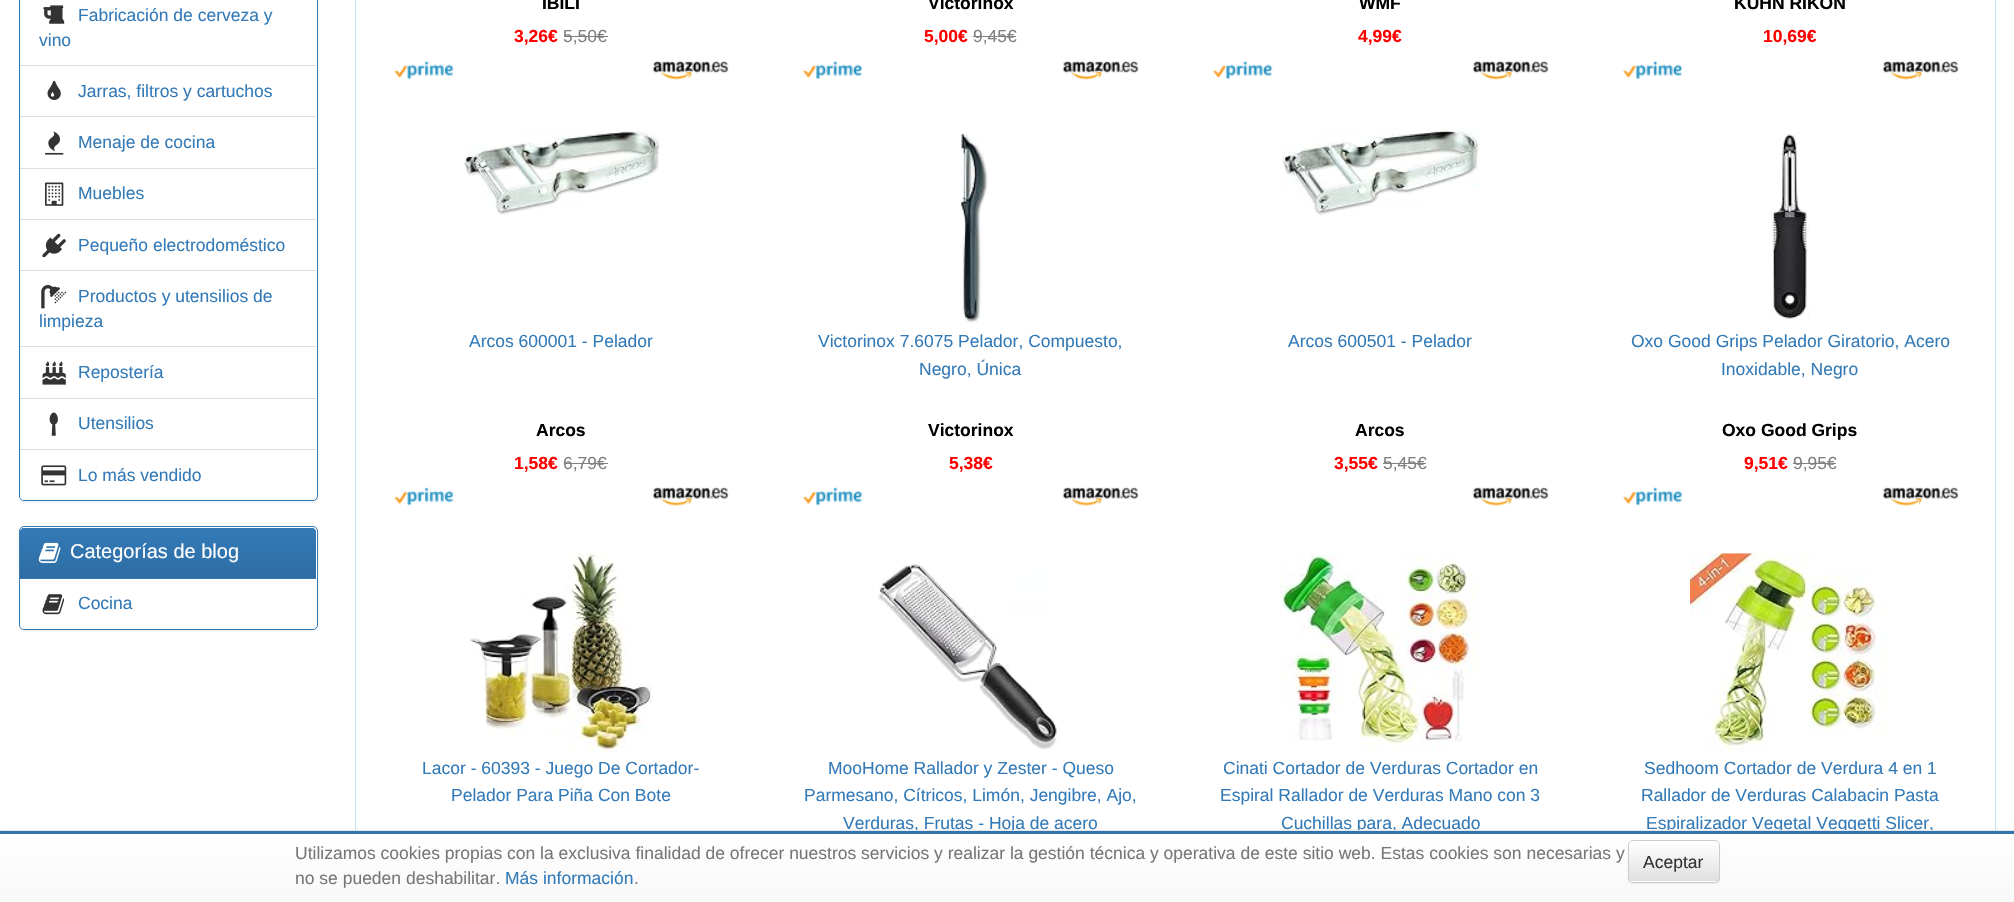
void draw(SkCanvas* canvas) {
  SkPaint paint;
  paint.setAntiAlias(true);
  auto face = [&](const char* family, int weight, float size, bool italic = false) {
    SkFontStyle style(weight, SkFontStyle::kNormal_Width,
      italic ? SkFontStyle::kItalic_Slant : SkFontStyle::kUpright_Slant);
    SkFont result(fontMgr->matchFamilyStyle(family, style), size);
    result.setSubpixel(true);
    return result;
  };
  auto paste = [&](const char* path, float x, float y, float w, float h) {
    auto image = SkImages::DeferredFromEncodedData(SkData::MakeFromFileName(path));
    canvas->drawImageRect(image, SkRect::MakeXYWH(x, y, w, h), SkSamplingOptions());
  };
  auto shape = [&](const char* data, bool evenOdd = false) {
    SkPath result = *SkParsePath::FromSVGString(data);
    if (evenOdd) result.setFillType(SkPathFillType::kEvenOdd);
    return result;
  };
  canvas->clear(0xffffffff);
  paint.setColor(0x0d000000);
  paint.setMaskFilter(SkMaskFilter::MakeBlur(kNormal_SkBlurStyle, 1));
  canvas->drawRoundRect(SkRect::MakeXYWH(19, -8, 299, 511), 5, 5, paint);
  paint.setMaskFilter(nullptr);
  paint.setColor(0xffffffff);
  canvas->drawRoundRect(SkRect::MakeXYWH(19.5f, -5.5f, 298, 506), 4.5f, 4.5f, paint);
  paint.setStroke(true);
  paint.setStrokeWidth(1);
  paint.setColor(0xff337ab7);
  canvas->drawRoundRect(SkRect::MakeXYWH(19.5f, -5.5f, 298, 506), 4.5f, 4.5f, paint);
  paint.setStroke(false);
  paint.setColor(0xffdddddd);
  canvas->drawRect(SkRect::MakeXYWH(20, 65, 296, 1), paint);
  paste("img/1.png", 43, 5, 22, 19);
  canvas->drawRect(SkRect::MakeXYWH(20, 116, 296, 1), paint);
  paste("img/2.png", 47, 80, 14, 20);
  canvas->drawRect(SkRect::MakeXYWH(20, 168, 296, 1), paint);
  paste("img/3.png", 45, 131, 19, 24);
  canvas->drawRect(SkRect::MakeXYWH(20, 219, 296, 1), paint);
  paste("img/4.png", 45, 182, 19, 24);
  canvas->drawRect(SkRect::MakeXYWH(20, 270, 296, 1), paint);
  paste("img/5.png", 42, 233, 24, 25);
  canvas->drawRect(SkRect::MakeXYWH(20, 346, 296, 1), paint);
  paste("img/6.png", 41, 285, 26, 24);
  canvas->drawRect(SkRect::MakeXYWH(20, 398, 296, 1), paint);
  paste("img/7.png", 42, 361, 24, 24);
  paste("img/8.png", 49, 412, 9, 24);
  paint.setColor(0xffffffff);
  canvas->drawPath(shape("M20 449H316V496C316 498 314 500 312 500H24C22 500 20 498 20 496Z"), paint);
  paint.setColor(0xffdddddd);
  canvas->drawRect(SkRect::MakeXYWH(20, 449, 296, 1), paint);
  paste("img/9.png", 41, 465, 26, 21);
  paint.setColor(0x0d000000);
  paint.setMaskFilter(SkMaskFilter::MakeBlur(kNormal_SkBlurStyle, 1));
  canvas->drawRoundRect(SkRect::MakeXYWH(19, 528, 299, 103), 5, 5, paint);
  paint.setMaskFilter(nullptr);
  paint.setColor(0xffffffff);
  canvas->drawRoundRect(SkRect::MakeXYWH(19.5f, 526.5f, 298, 103), 4.5f, 4.5f, paint);
  paint.setStroke(true);
  paint.setColor(0xff337ab7);
  canvas->drawRoundRect(SkRect::MakeXYWH(19.5f, 526.5f, 298, 103), 4.5f, 4.5f, paint);
  paint.setStroke(false);
  canvas->drawPath(shape("M24 528H312C314 528 316 530 316 532V579H20V532C20 530 22 528 24 528Z"), paint);
  {
    const SkColor colors[] = {0xff337ab7, 0xff2e6da4};
    const float stops[] = {0, 1};
    const SkPoint ends[] = {{168, 528}, {168, 578}};
    paint.setShader(SkGradientShader::MakeLinear(ends, colors, stops, 2, SkTileMode::kClamp));
    paint.setAlpha(255);
  }
  canvas->drawPath(shape("M24 528H312C314 528 316 530 316 532V578H20V532C20 530 22 528 24 528Z"), paint);
  paste("img/10.png", 38, 542, 23, 21);
  paint.setShader(nullptr);
  paint.setColor(0x12000000);
  paint.setMaskFilter(SkMaskFilter::MakeBlur(kNormal_SkBlurStyle, 1));
  canvas->drawRoundRect(SkRect::MakeXYWH(20, 580, 296, 50), 5, 5, paint);
  paint.setMaskFilter(nullptr);
  paint.setColor(0xffffffff);
  canvas->drawPath(shape("M20 579H316V625C316 627 314 629 312 629H24C22 629 20 627 20 625Z"), paint);
  paste("img/11.png", 42, 594, 23, 21);
  paint.setStroke(true);
  paint.setColor(0xffbce8f1);
  canvas->drawRect(SkRect::MakeXYWH(355.5f, -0.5f, 1640, 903), paint);
  paint.setStroke(false);
  paint.setColor(0xff808080);
  canvas->drawRect(SkRect::MakeXYWH(564, 36, 44, 1), paint);
  paste("img/12.png", 393, 60, 61, 20);
  paste("img/13.png", 652, 60, 77, 20);
  canvas->drawRect(SkRect::MakeXYWH(973, 36, 43, 1), paint);
  paste("img/14.png", 802, 60, 61, 20);
  paste("img/15.png", 1062, 60, 77, 20);
  paste("img/14.png", 1212, 60, 61, 20);
  paste("img/13.png", 1472, 60, 77, 20);
  paste("img/14.png", 1622, 60, 61, 20);
  paste("img/13.png", 1882, 60, 77, 20);
  paste("img/16.png", 463, 127, 198, 88);
  canvas->drawRect(SkRect::MakeXYWH(564, 463, 44, 1), paint);
  paste("img/17.png", 394, 487, 60, 19);
  paste("img/18.png", 652, 487, 77, 19);
  paste("img/19.png", 961, 133, 27, 190);
  paste("img/20.png", 802, 487, 61, 19);
  paste("img/21.png", 1062, 487, 77, 19);
  paste("img/22.png", 1280, 127, 200, 89);
  canvas->drawRect(SkRect::MakeXYWH(1383, 463, 43, 1), paint);
  paste("img/18.png", 1472, 487, 77, 19);
  paste("img/23.png", 1770, 132, 40, 187);
  canvas->drawRect(SkRect::MakeXYWH(1793, 463, 43, 1), paint);
  paste("img/20.png", 1622, 487, 61, 19);
  paste("img/18.png", 1882, 487, 77, 19);
  paste("img/24.png", 466, 553, 188, 200);
  paste("img/25.png", 877, 564, 183, 186);
  paste("img/26.png", 1280, 553, 200, 200);
  paste("img/27.png", 1690, 553, 200, 200);
  paint.setColor(0x12000000);
  paint.setMaskFilter(SkMaskFilter::MakeBlur(kNormal_SkBlurStyle, 3));
  canvas->drawRect(SkRect::MakeXYWH(0, 831, 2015, 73), paint);
  paint.setMaskFilter(nullptr);
  {
    const SkColor colors[] = {0xffffffff, 0xfff8f8f8};
    const float stops[] = {0, 1};
    const SkPoint ends[] = {{1008, 831}, {1008, 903}};
    paint.setShader(SkGradientShader::MakeLinear(ends, colors, stops, 2, SkTileMode::kClamp));
    paint.setAlpha(255);
  }
  canvas->drawRect(SkRect::MakeXYWH(0, 834, 2014, 68), paint);
  paint.setShader(nullptr);
  paint.setColor(0x12000000);
  paint.setMaskFilter(SkMaskFilter::MakeBlur(kNormal_SkBlurStyle, 0.5f));
  canvas->drawRoundRect(SkRect::MakeXYWH(1628, 841, 92, 43), 5, 5, paint);
  paint.setMaskFilter(nullptr);
  paint.setColor(0xffffffff);
  canvas->drawRoundRect(SkRect::MakeXYWH(1628, 840, 92, 43), 5, 5, paint);
  canvas->save();
  canvas->clipPath(shape("M1633 840H1715C1718 840 1720 842 1720 845V878C1720 881 1718 883 1715 883H1633C1630 883 1628 881 1628 878V845C1628 842 1630 840 1633 840Z"), true);
  {
    const SkColor colors[] = {0xffffffff, 0xffe0e0e0};
    const float stops[] = {0, 1};
    const SkPoint ends[] = {{1674, 841}, {1674, 881}};
    paint.setShader(SkGradientShader::MakeLinear(ends, colors, stops, 2, SkTileMode::kClamp));
    paint.setAlpha(255);
  }
  canvas->drawRect(SkRect::MakeXYWH(1628, 841, 92, 40), paint);
  canvas->restore();
  paint.setStroke(true);
  paint.setShader(nullptr);
  paint.setColor(0xffcccccc);
  canvas->drawRoundRect(SkRect::MakeXYWH(1628.5f, 840.5f, 91, 42), 4.5f, 4.5f, paint);
  auto f0 = face("Liberation Sans", 400, 17.5f);
  paint.setStroke(false);
  paint.setColor(0xff337ab7);
  {
    const struct { const char* s; float x, y; } items[] = {
      {"Fabricación de cerveza y", 78, 21},
      {"vino", 39, 46},
      {"Jarras, filtros y cartuchos", 78, 97},
      {"Menaje de cocina", 78, 148},
      {"Muebles", 78, 199},
      {"Pequeño electrodoméstico", 78, 251},
      {"Productos y utensilios de", 78, 302},
      {"limpieza", 39, 327},
      {"Repostería", 78, 378},
      {"Utensilios", 78, 429},
      {"Lo más vendido", 78, 481},
    };
    for (auto [s, x, y] : items) {
      canvas->drawString(s, x, y, f0, paint);
    }
  }
  auto f1 = face("Liberation Sans", 400, 20);
  paint.setColor(0xffffffff);
  canvas->drawString("Categorías de blog", 70, 558, f1, paint);
  paint.setColor(0xff337ab7);
  canvas->drawString("Cocina", 78, 609, f0, paint);
  auto f2 = face("Liberation Sans", 700, 17.5f);
  paint.setColor(0xff000000);
  canvas->drawString("IBILI", 542, 9, f2, paint);
  paint.setColor(0xffff0000);
  canvas->drawString("3,26€", 514, 42, f2, paint);
  paint.setColor(0xff808080);
  canvas->drawString("5,50€", 563, 42, f0, paint);
  paint.setColor(0xff000000);
  canvas->drawString("Victorinox", 928, 9, f2, paint);
  paint.setColor(0xffff0000);
  canvas->drawString("5,00€", 924, 42, f2, paint);
  paint.setColor(0xff808080);
  canvas->drawString("9,45€", 973, 42, f0, paint);
  paint.setColor(0xff000000);
  canvas->drawString("WMF", 1359, 9, f2, paint);
  paint.setColor(0xffff0000);
  canvas->drawString("4,99€", 1358, 42, f2, paint);
  paint.setColor(0xff000000);
  canvas->drawString("KUHN RIKON", 1734, 9, f2, paint);
  paint.setColor(0xffff0000);
  canvas->drawString("10,69€", 1763, 42, f2, paint);
  paint.setColor(0xff337ab7);
  canvas->drawString("Arcos 600001 - Pelador", 469, 347, f0, paint);
  paint.setColor(0xff000000);
  canvas->drawString("Arcos", 536, 436, f2, paint);
  paint.setColor(0xffff0000);
  canvas->drawString("1,58€", 514, 469, f2, paint);
  paint.setColor(0xff808080);
  canvas->drawString("6,79€", 563, 469, f0, paint);
  paint.setColor(0xff337ab7);
  canvas->drawString("Victorinox 7.6075 Pelador, Compuesto,", 818, 347, f0, paint);
  canvas->drawString("Negro, Única", 919, 375, f0, paint);
  paint.setColor(0xff000000);
  canvas->drawString("Victorinox", 928, 436, f2, paint);
  paint.setColor(0xffff0000);
  canvas->drawString("5,38€", 949, 469, f2, paint);
  paint.setColor(0xff337ab7);
  canvas->drawString("Arcos 600501 - Pelador", 1288, 347, f0, paint);
  paint.setColor(0xff000000);
  canvas->drawString("Arcos", 1355, 436, f2, paint);
  paint.setColor(0xffff0000);
  canvas->drawString("3,55€", 1334, 469, f2, paint);
  paint.setColor(0xff808080);
  canvas->drawString("5,45€", 1383, 469, f0, paint);
  paint.setColor(0xff337ab7);
  canvas->drawString("Oxo Good Grips Pelador Giratorio, Acero", 1631, 347, f0, paint);
  canvas->drawString("Inoxidable, Negro", 1721, 375, f0, paint);
  paint.setColor(0xff000000);
  canvas->drawString("Oxo Good Grips", 1722, 436, f2, paint);
  paint.setColor(0xffff0000);
  canvas->drawString("9,51€", 1744, 469, f2, paint);
  paint.setColor(0xff808080);
  canvas->drawString("9,95€", 1793, 469, f0, paint);
  paint.setColor(0xff337ab7);
  {
    const struct { const char* s; float x, y; } items[] = {
      {"Lacor - 60393 - Juego De Cortador-", 422, 774},
      {"Pelador Para Piña Con Bote", 451, 801},
      {"MooHome Rallador y Zester - Queso", 828, 774},
      {"Parmesano, Cítricos, Limón, Jengibre, Ajo,", 804, 801},
      {"Verduras, Frutas - Hoja de acero", 843, 829},
      {"Cinati Cortador de Verduras Cortador en", 1223, 774},
      {"Espiral Rallador de Verduras Mano con 3", 1220, 801},
      {"Cuchillas para, Adecuado", 1281, 829},
      {"Sedhoom Cortador de Verdura 4 en 1", 1644, 774},
      {"Rallador de Verduras Calabacin Pasta", 1641, 801},
      {"Espiralizador Vegetal Veggetti Slicer,", 1646, 829},
    };
    for (auto [s, x, y] : items) {
      canvas->drawString(s, x, y, f0, paint);
    }
  }
  paint.setColor(0xffe7e7e7);
  canvas->drawRect(SkRect::MakeXYWH(0, 830, 2014, 1), paint);
  paint.setColor(0xff3073ad);
  canvas->drawRect(SkRect::MakeXYWH(0, 831, 2014, 3), paint);
  paint.setColor(0xff777777);
  canvas->drawString("Utilizamos cookies propias con la exclusiva finalidad de ofrecer nuestros servicios y realizar la gestión técnica y operativa de este sitio web. Estas cookies son necesarias y", 295, 859, f0, paint);
  canvas->drawString("no se pueden deshabilitar.", 295, 884, f0, paint);
  paint.setColor(0xff337ab7);
  canvas->drawString("Más información", 505, 884, f0, paint);
  paint.setColor(0xff777777);
  canvas->drawString(".", 634, 884, f0, paint);
  paint.setColor(0xff333333);
  canvas->drawString("Aceptar", 1643, 868, f0, paint);
}
